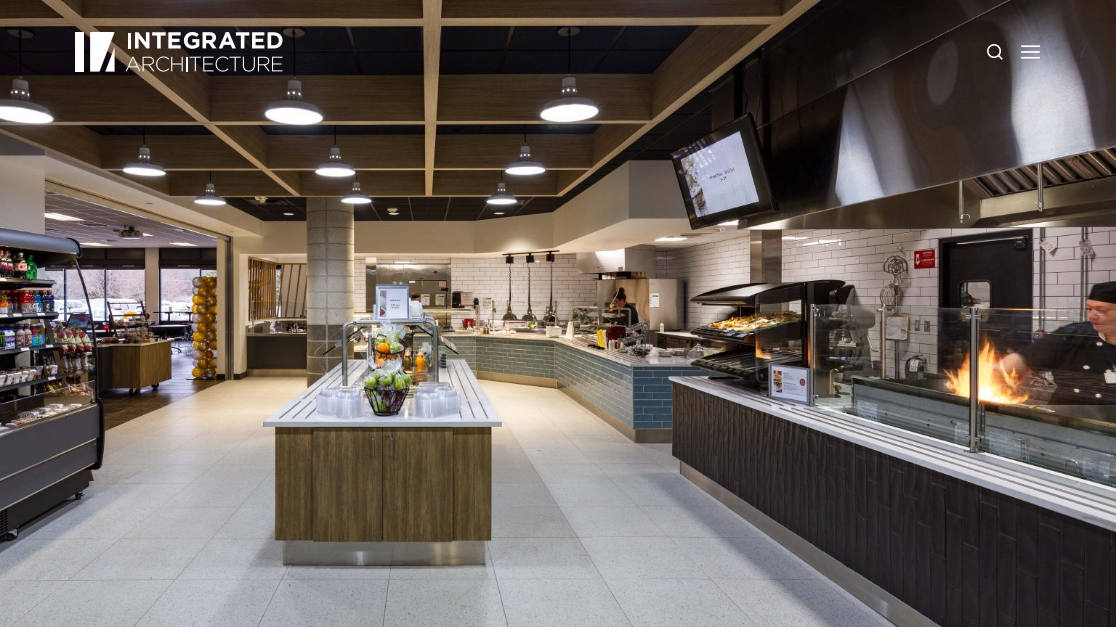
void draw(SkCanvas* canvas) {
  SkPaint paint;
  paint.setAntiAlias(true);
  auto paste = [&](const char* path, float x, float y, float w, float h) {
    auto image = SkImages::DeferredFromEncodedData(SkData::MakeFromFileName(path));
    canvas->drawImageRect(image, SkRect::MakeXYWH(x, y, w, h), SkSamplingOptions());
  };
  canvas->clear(0xffffffff);
  paste("img/1.png", 0, 0, 1116, 627);
  paste("img/2.png", 75, 32, 208, 40);
  paste("img/3.png", 987, 44, 16, 16);
  paste("img/4.png", 1021, 45, 19, 14);
}
